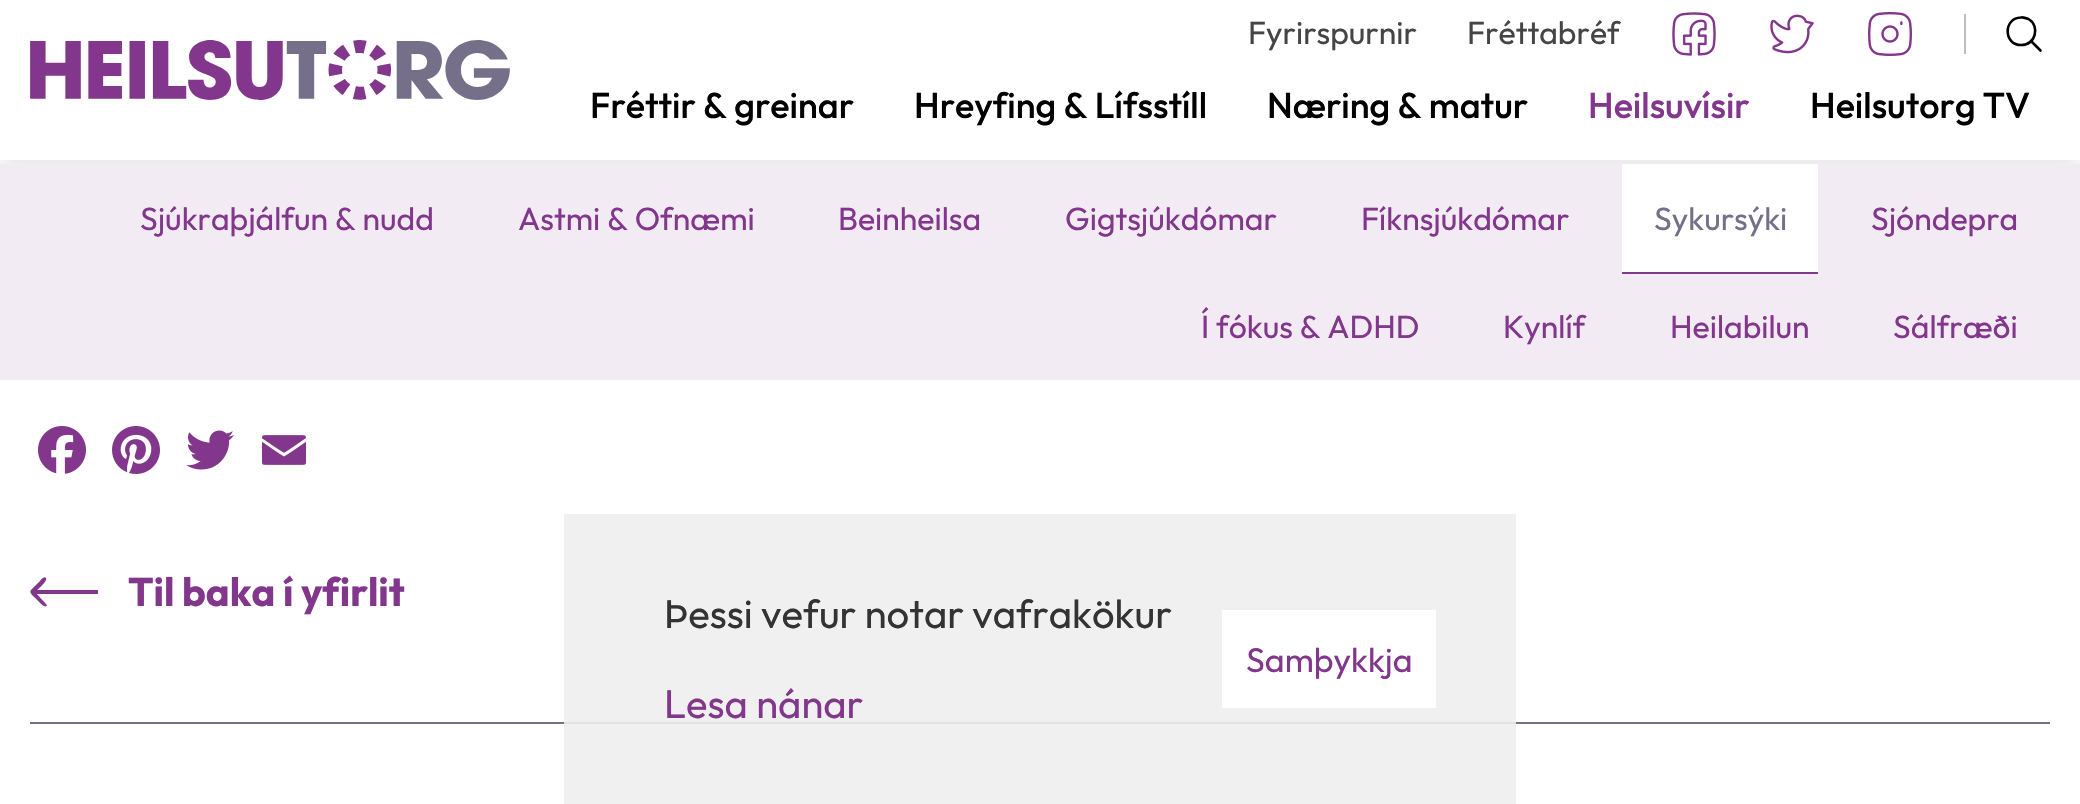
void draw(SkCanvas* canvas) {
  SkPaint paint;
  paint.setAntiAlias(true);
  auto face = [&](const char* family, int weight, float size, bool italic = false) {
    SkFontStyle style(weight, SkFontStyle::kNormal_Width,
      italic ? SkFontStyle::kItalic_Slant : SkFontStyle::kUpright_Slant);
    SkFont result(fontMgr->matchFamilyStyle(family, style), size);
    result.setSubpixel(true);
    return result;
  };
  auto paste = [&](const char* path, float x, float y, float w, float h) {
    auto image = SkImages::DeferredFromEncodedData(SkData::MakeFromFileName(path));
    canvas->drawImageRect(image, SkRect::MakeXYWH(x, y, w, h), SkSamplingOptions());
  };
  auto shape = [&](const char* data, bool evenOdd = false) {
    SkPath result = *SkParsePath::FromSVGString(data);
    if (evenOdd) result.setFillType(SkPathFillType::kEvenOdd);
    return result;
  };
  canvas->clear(0xffffffff);
  paint.setColor(0xfff0f0f0);
  canvas->drawRect(SkRect::MakeXYWH(564, 514, 952, 290), paint);
  paint.setColor(0x1a000000);
  paint.setMaskFilter(SkMaskFilter::MakeBlur(kNormal_SkBlurStyle, 10));
  canvas->drawRect(SkRect::MakeXYWH(0, 8, 2080, 160), paint);
  paint.setMaskFilter(nullptr);
  paint.setColor(0xffffffff);
  canvas->drawRect(SkRect::MakeXYWH(0, 0, 2080, 160), paint);
  paste("img/1.png", 1672, 12, 44, 44);
  paste("img/2.png", 1770, 14, 44, 40);
  paste("img/3.png", 1868, 12, 45, 44);
  paint.setColor(0xffbfbfbf);
  canvas->drawRect(SkRect::MakeXYWH(1964, 14, 2, 40), paint);
  paint.setStroke(true);
  paint.setStrokeWidth(2.6f);
  paint.setStrokeCap(SkPaint::kRound_Cap);
  paint.setStrokeJoin(SkPaint::kRound_Join);
  paint.setColor(0xff000000);
  canvas->drawPath(shape("M2021 45C2035.5 45.5 2040.5 26 2028.5 19C2026 18 2023.5 17 2021 17.5C2003 18 2003.5 45 2021 45ZM2040.5 50.5L2031 41"), paint);
  paste("img/4.png", 30, 40, 480, 60);
  paint.setStroke(false);
  {
    const struct { float x, y, w, h; SkColor color; } items[] = {
      {0, 164, 2080, 216, 0xfff2ebf3},
      {1622, 272, 196, 2, 0xff82368c},
      {1622, 164, 196, 108, 0xffffffff},
    };
    for (auto [x, y, w, h, color] : items) {
      paint.setColor(color);
      canvas->drawRect(SkRect::MakeXYWH(x, y, w, h), paint);
    }
  }
  paste("img/5.png", 38, 426, 48, 48);
  paste("img/6.png", 112, 426, 48, 48);
  paste("img/7.png", 186, 430, 48, 40);
  paste("img/8.png", 262, 435, 44, 30);
  paint.setColor(0xff766f89);
  canvas->drawRect(SkRect::MakeXYWH(30, 722, 2020, 2), paint);
  paint.setColor(0xffe2e1e4);
  canvas->drawRect(SkRect::MakeXYWH(564, 722, 952, 2), paint);
  paint.setColor(0xff82368c);
  canvas->drawPath(shape("M31 590C28 593 36 598 37 600C38 600 45 610 47 605L46 604L35 592C37 590 48 581 46 578C44 575 40 581 39 582ZM98 590H32V594H98Z"), paint);
  paint.setColor(0xffffffff);
  canvas->drawRect(SkRect::MakeXYWH(1222, 610, 214, 98), paint);
  auto f0 = face("Outfit", 400, 32);
  paint.setColor(0xff454545);
  canvas->drawString("Fyrirspurnir", 1248, 44, f0, paint);
  canvas->drawString("Fréttabréf", 1467, 44, f0, paint);
  auto f1 = face("Outfit", 500, 36);
  paint.setColor(0xff000000);
  {
    const struct { const char* s; float x, y; } items[] = {
      {"Fréttir & greinar", 590, 118},
      {"Hreyfing & Lífsstíll", 914, 118},
      {"Næring & matur", 1267, 118},
    };
    for (auto [s, x, y] : items) {
      canvas->drawString(s, x, y, f1, paint);
    }
  }
  paint.setColor(0xff82368c);
  canvas->drawString("Heilsuvísir", 1588, 118, f1, paint);
  paint.setColor(0xff000000);
  canvas->drawString("Heilsutorg TV", 1810, 118, f1, paint);
  paint.setColor(0xff82368c);
  {
    const struct { const char* s; float x, y; } items[] = {
      {"Sjúkraþjálfun & nudd", 140, 230},
      {"Astmi & Ofnæmi", 518, 230},
      {"Beinheilsa", 838, 230},
      {"Gigtsjúkdómar", 1065, 230},
      {"Fíknsjúkdómar", 1361, 230},
    };
    for (auto [s, x, y] : items) {
      canvas->drawString(s, x, y, f0, paint);
    }
  }
  paint.setColor(0xff766f89);
  canvas->drawString("Sykursýki", 1654, 230, f0, paint);
  paint.setColor(0xff82368c);
  {
    const struct { const char* s; float x, y; } items[] = {
      {"Sjóndepra", 1871, 230},
      {"Í fókus & ADHD", 1201, 338},
      {"Kynlíf", 1503, 338},
      {"Heilabilun", 1670, 338},
      {"Sálfræði", 1893, 338},
    };
    for (auto [s, x, y] : items) {
      canvas->drawString(s, x, y, f0, paint);
    }
  }
  auto f2 = face("Outfit", 700, 40);
  canvas->drawString("Til baka í yfirlit", 128, 606, f2, paint);
  auto f3 = face("Outfit", 400, 40);
  paint.setColor(0xff333333);
  canvas->drawString("Þessi vefur notar vafrakökur", 664, 628, f3, paint);
  paint.setColor(0xff82368c);
  canvas->drawString("Lesa nánar", 664, 718, f3, paint);
  auto f4 = face("Outfit", 400, 34);
  canvas->drawString("Samþykkja", 1246, 672, f4, paint);
}
